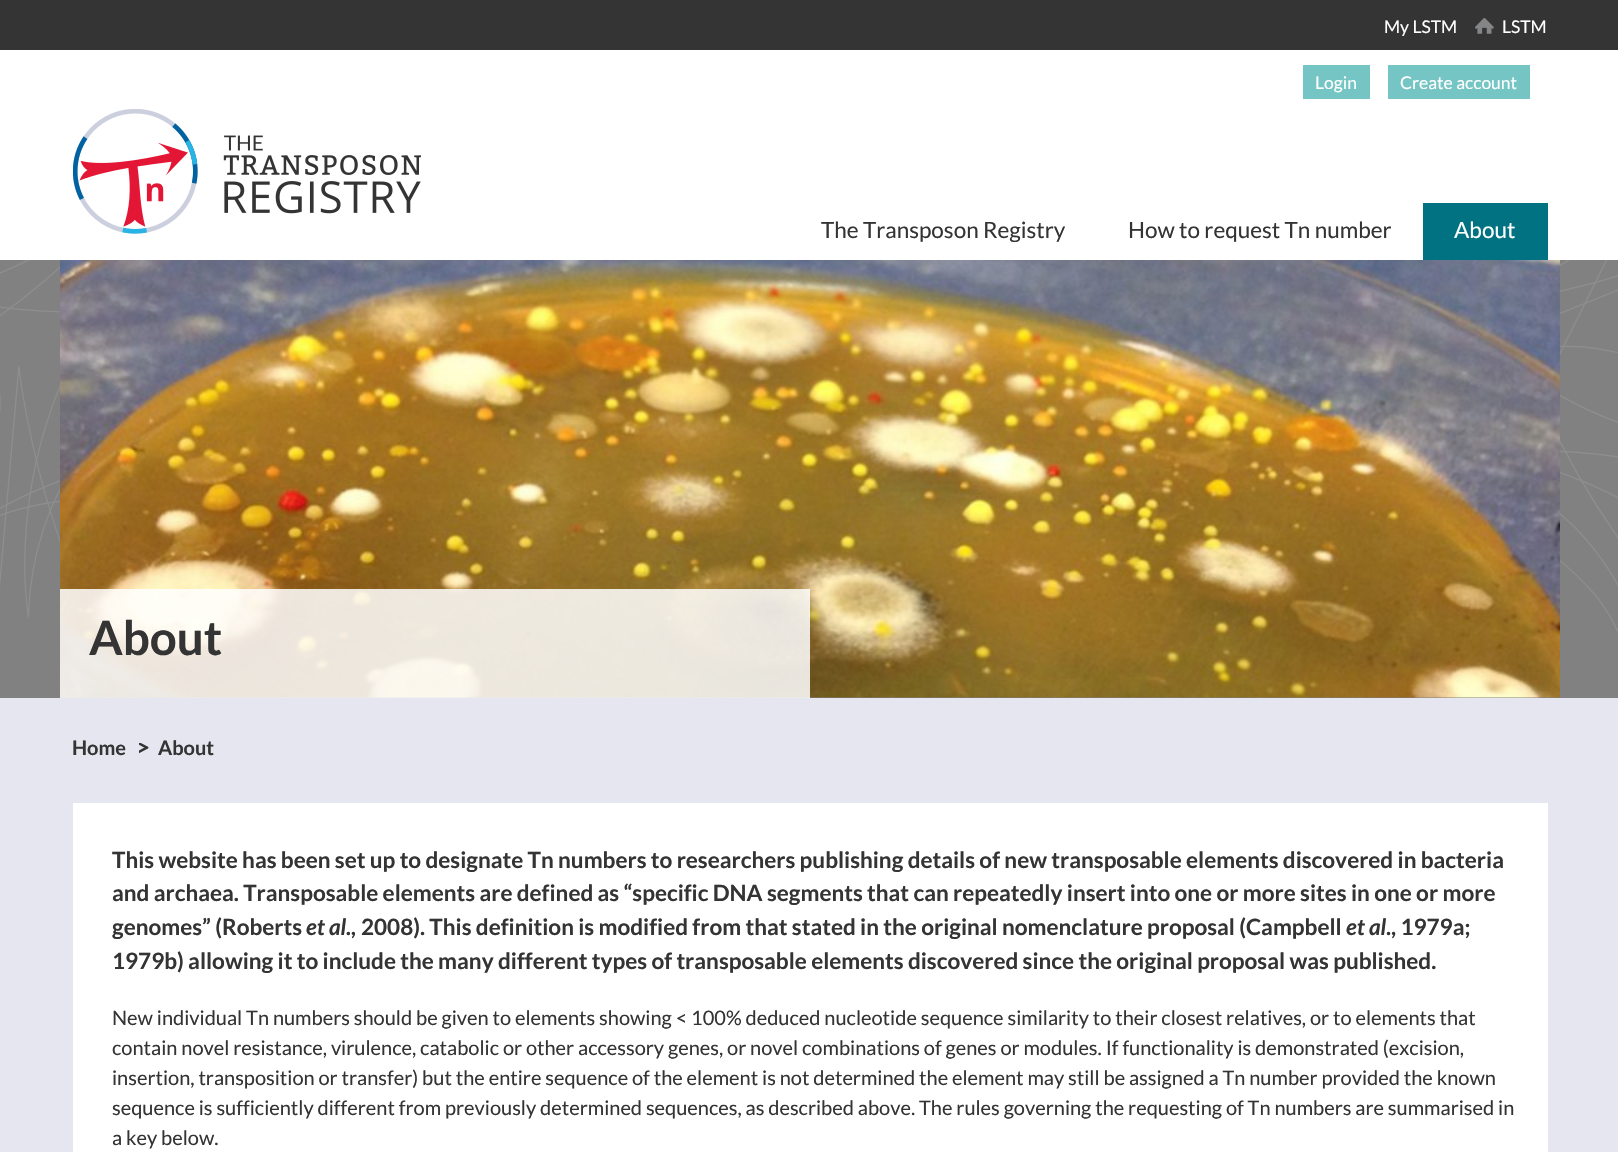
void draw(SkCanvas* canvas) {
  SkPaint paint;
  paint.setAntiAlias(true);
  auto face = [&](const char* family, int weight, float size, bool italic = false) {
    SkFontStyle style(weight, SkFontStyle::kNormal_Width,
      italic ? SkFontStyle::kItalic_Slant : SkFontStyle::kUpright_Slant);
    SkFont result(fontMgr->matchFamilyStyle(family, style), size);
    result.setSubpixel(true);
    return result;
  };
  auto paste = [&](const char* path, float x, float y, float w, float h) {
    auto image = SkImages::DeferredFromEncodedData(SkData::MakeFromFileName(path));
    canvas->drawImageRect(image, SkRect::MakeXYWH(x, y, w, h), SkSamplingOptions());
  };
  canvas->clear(0xffffffff);
  paint.setColor(0xff343434);
  canvas->drawRect(SkRect::MakeXYWH(0, 0, 1618, 50), paint);
  paste("img/1.png", 1475, 18, 19, 16);
  paint.setColor(0xff74c5c3);
  canvas->drawRect(SkRect::MakeXYWH(1303, 65, 67, 34), paint);
  canvas->drawRect(SkRect::MakeXYWH(1388, 65, 142, 34), paint);
  paste("img/2.png", 73, 109, 348, 125);
  {
    const struct { float x, y, w, h; SkColor color; } items[] = {
      {1423, 203, 125, 57, 0xff007281},
      {0, 698, 1618, 454, 0xffe5e6ef},
      {0, 260, 1618, 438, 0xff818181},
    };
    for (auto [x, y, w, h, color] : items) {
      paint.setColor(color);
      canvas->drawRect(SkRect::MakeXYWH(x, y, w, h), paint);
    }
  }
  paste("img/3.png", 0, 260, 1618, 438);
  paste("img/4.png", 60, 260, 1500, 438);
  paint.setColor(0xd9ffffff);
  canvas->drawRect(SkRect::MakeXYWH(60, 589, 750, 109), paint);
  paste("img/5.png", 139, 743, 10, 11);
  paint.setColor(0xffffffff);
  canvas->drawRect(SkRect::MakeXYWH(73, 803, 1475, 349), paint);
  auto f0 = face("Lato", 400, 17.5f);
  {
    const struct { const char* s; float x, y; } items[] = {
      {"My LSTM", 1384, 33},
      {"LSTM", 1502, 33},
      {"Login", 1315, 89},
      {"Create account", 1400, 89},
    };
    for (auto [s, x, y] : items) {
      canvas->drawString(s, x, y, f0, paint);
    }
  }
  auto f1 = face("Lato", 400, 22.5f);
  paint.setColor(0xff343434);
  canvas->drawString("The Transposon Registry", 821, 238, f1, paint);
  canvas->drawString("How to request Tn number", 1128, 238, f1, paint);
  paint.setColor(0xffffffff);
  canvas->drawString("About", 1454, 238, f1, paint);
  auto f2 = face("Lato", 700, 47.5f);
  paint.setColor(0xff343434);
  canvas->drawString("About", 89, 655, f2, paint);
  auto f3 = face("Lato", 700, 20);
  canvas->drawString("Home", 72, 755, f3, paint);
  canvas->drawString("About", 158, 755, f3, paint);
  auto f4 = face("Lato", 700, 22.5f);
  {
    const struct { const char* s; float x, y; } items[] = {
      {"This website has been set up to designate Tn numbers to researchers publishing details of new transposable elements discovered in bacteria", 112, 868},
      {"and archaea. Transposable elements are defined as “specific DNA segments that can repeatedly insert into one or more sites in one or more", 112, 901},
      {"genomes” (Roberts", 112, 935},
    };
    for (auto [s, x, y] : items) {
      canvas->drawString(s, x, y, f4, paint);
    }
  }
  auto f5 = face("Lato", 700, 22.5f, true);
  canvas->drawString("et al.,", 306, 935, f5, paint);
  canvas->drawString("2008). This definition is modified from that stated in the original nomenclature proposal (Campbell", 361, 935, f4, paint);
  canvas->drawString("et al", 1346, 935, f5, paint);
  canvas->drawString("., 1979a;", 1386, 935, f4, paint);
  canvas->drawString("1979b) allowing it to include the many different types of transposable elements discovered since the original proposal was published.", 112, 969, f4, paint);
  auto f6 = face("Lato", 400, 20);
  {
    const struct { const char* s; float x, y; } items[] = {
      {"New individual Tn numbers should be given to elements showing < 100% deduced nucleotide sequence similarity to their closest relatives, or to elements that", 112, 1025},
      {"contain novel resistance, virulence, catabolic or other accessory genes, or novel combinations of genes or modules. If functionality is demonstrated (excision,", 112, 1055},
      {"insertion, transposition or transfer) but the entire sequence of the element is not determined the element may still be assigned a Tn number provided the known", 112, 1085},
      {"sequence is sufficiently different from previously determined sequences, as described above. The rules governing the requesting of Tn numbers are summarised in", 112, 1115},
      {"a key below.", 112, 1145},
    };
    for (auto [s, x, y] : items) {
      canvas->drawString(s, x, y, f6, paint);
    }
  }
}
